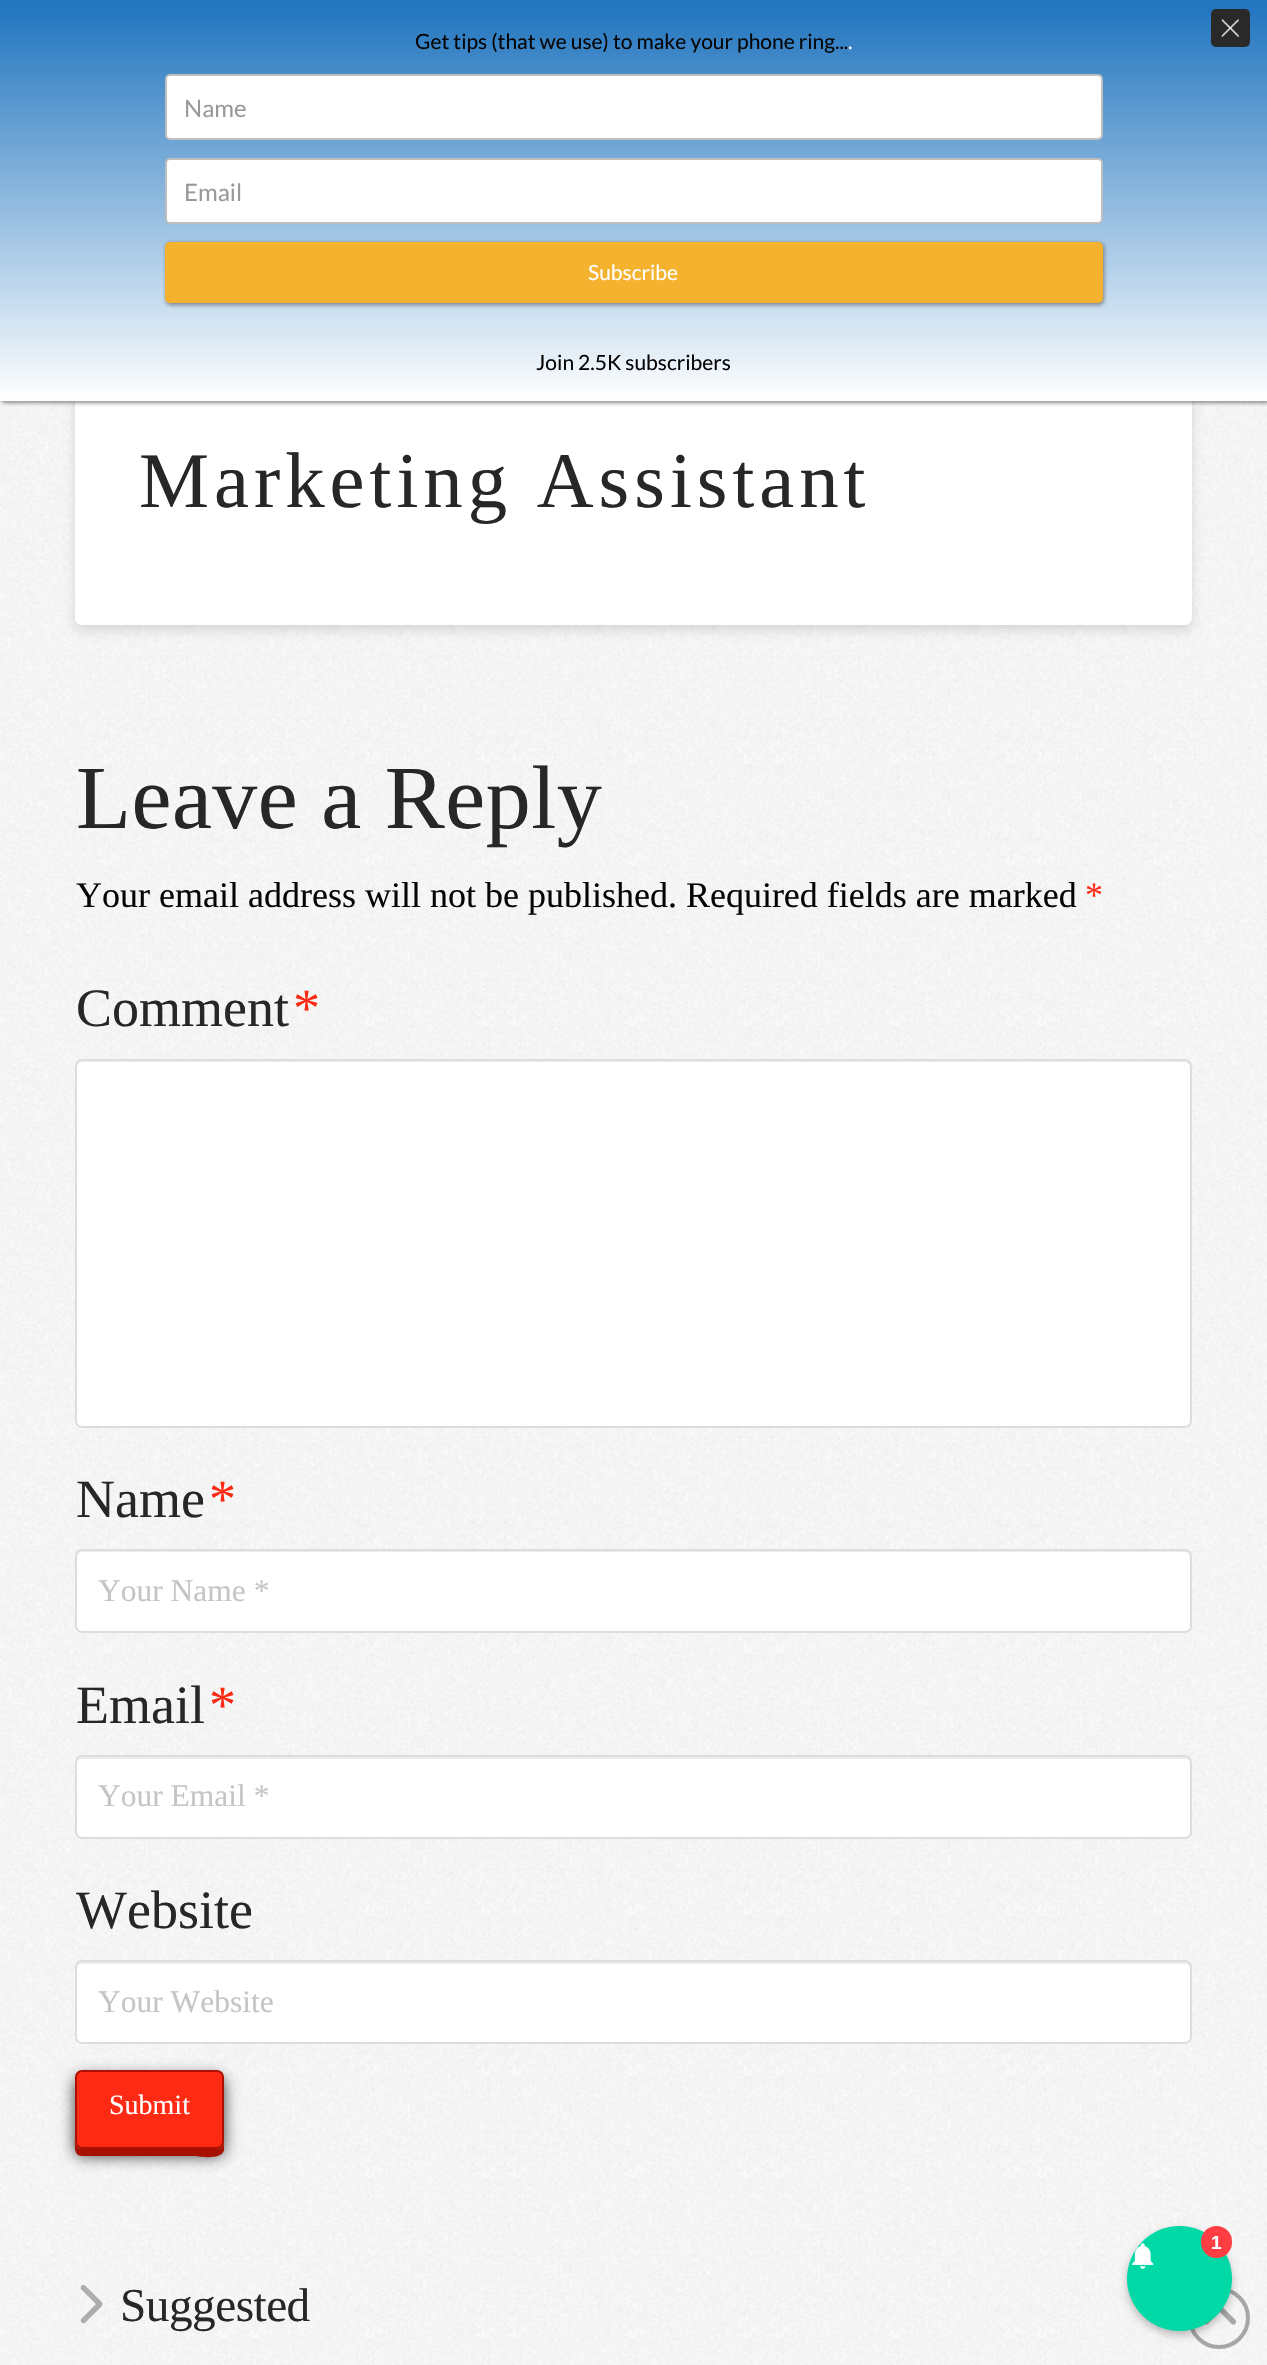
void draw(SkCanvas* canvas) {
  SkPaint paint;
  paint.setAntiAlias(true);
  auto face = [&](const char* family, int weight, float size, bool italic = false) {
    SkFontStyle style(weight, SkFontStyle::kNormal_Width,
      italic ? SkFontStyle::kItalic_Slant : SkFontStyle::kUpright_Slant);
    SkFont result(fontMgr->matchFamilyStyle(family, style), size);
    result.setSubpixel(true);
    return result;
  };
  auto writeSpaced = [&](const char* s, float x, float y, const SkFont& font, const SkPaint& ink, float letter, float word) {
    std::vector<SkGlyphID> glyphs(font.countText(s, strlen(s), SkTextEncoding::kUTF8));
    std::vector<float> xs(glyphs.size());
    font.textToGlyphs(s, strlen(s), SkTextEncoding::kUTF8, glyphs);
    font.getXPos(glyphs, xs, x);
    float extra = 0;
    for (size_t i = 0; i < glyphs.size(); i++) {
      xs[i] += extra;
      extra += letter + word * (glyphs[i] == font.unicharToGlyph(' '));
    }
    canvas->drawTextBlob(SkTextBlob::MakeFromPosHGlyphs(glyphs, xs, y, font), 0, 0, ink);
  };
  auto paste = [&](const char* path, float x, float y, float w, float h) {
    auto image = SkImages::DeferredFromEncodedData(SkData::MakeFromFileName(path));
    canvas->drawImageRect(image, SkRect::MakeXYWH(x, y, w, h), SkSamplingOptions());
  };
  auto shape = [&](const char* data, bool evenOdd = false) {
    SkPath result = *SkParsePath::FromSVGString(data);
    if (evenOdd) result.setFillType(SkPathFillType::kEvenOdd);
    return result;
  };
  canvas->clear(0xffffffff);
  paste("img/1.png", 0, 401, 1267, 1964);
  paint.setColor(0x21000000);
  paint.setMaskFilter(SkMaskFilter::MakeBlur(kNormal_SkBlurStyle, 5.5f));
  canvas->drawRoundRect(SkRect::MakeXYWH(75, 217, 1117, 413), 7, 7, paint);
  paint.setMaskFilter(nullptr);
  paint.setColor(0xffffffff);
  canvas->drawRoundRect(SkRect::MakeXYWH(75, 212, 1117, 413), 7, 7, paint);
  paint.setColor(0x99424242);
  paint.setMaskFilter(SkMaskFilter::MakeBlur(kNormal_SkBlurStyle, 2));
  canvas->drawRect(SkRect::MakeXYWH(2, 2, 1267, 401), paint);
  paint.setMaskFilter(nullptr);
  paint.setColor(0xff2476bf);
  canvas->drawRect(SkRect::MakeXYWH(0, 0, 1267, 7), paint);
  {
    const SkColor colors[] = {0xffffffff, 0xff1e73be};
    const float stops[] = {0, 1};
    const SkPoint ends[] = {{634, 401}, {634, 0}};
    paint.setShader(SkGradientShader::MakeLinear(ends, colors, stops, 2, SkTileMode::kClamp));
    paint.setAlpha(255);
  }
  canvas->drawRect(SkRect::MakeXYWH(0, 7, 1267, 394), paint);
  paint.setShader(nullptr);
  paint.setColor(0xff292929);
  canvas->drawRoundRect(SkRect::MakeXYWH(1211, 9, 39, 38), 5, 5, paint);
  paste("img/2.png", 1221, 18, 18, 19);
  paint.setColor(0xffffffff);
  canvas->drawRoundRect(SkRect::MakeXYWH(166, 75, 936, 64), 4, 4, paint);
  paint.setStroke(true);
  paint.setStrokeWidth(2);
  paint.setColor(0xffbfbebe);
  canvas->drawRoundRect(SkRect::MakeXYWH(166, 75, 936, 64), 4, 4, paint);
  paint.setStroke(false);
  paint.setColor(0xffffffff);
  canvas->drawRoundRect(SkRect::MakeXYWH(166, 159, 936, 64), 4, 4, paint);
  paint.setStroke(true);
  paint.setColor(0xffbfbebe);
  canvas->drawRoundRect(SkRect::MakeXYWH(166, 159, 936, 64), 4, 4, paint);
  paint.setStroke(false);
  paint.setColor(0x99424242);
  paint.setMaskFilter(SkMaskFilter::MakeBlur(kNormal_SkBlurStyle, 2));
  canvas->drawRoundRect(SkRect::MakeXYWH(166, 243, 938, 62), 5, 5, paint);
  paint.setMaskFilter(nullptr);
  paint.setColor(0xfff4b22e);
  canvas->drawRoundRect(SkRect::MakeXYWH(165, 242, 938, 61), 5, 5, paint);
  paint.setColor(0xffffffff);
  canvas->drawRoundRect(SkRect::MakeXYWH(75, 1059, 1117, 369), 7, 7, paint);
  paint.setColor(0xffececec);
  canvas->drawPath(shape("M82 1062H1185C1188 1062 1190 1065 1190 1068V1066C1190 1063 1188 1061 1185 1061H82C79 1061 77 1063 77 1066V1068C77 1065 79 1062 82 1062Z"), paint);
  paint.setStroke(true);
  paint.setColor(0xffdddddd);
  canvas->drawRoundRect(SkRect::MakeXYWH(76, 1060, 1115, 367), 6, 6, paint);
  paint.setStroke(false);
  paint.setColor(0xffffffff);
  canvas->drawRoundRect(SkRect::MakeXYWH(75, 1549, 1117, 84), 7, 7, paint);
  paint.setColor(0xffececec);
  canvas->drawPath(shape("M82 1552H1185C1188 1552 1190 1555 1190 1558V1556C1190 1553 1188 1551 1185 1551H82C79 1551 77 1553 77 1556V1558C77 1555 79 1552 82 1552Z"), paint);
  paint.setStroke(true);
  paint.setColor(0xffdddddd);
  canvas->drawRoundRect(SkRect::MakeXYWH(76, 1550, 1115, 82), 6, 6, paint);
  paint.setStroke(false);
  paint.setColor(0xffffffff);
  canvas->drawRoundRect(SkRect::MakeXYWH(75, 1755, 1117, 84), 7, 7, paint);
  paint.setColor(0xffececec);
  canvas->drawPath(shape("M82 1759H1185C1188 1759 1190 1761 1190 1764V1762C1190 1759 1188 1757 1185 1757H82C79 1757 77 1759 77 1762V1764C77 1761 79 1759 82 1759Z"), paint);
  paint.setStroke(true);
  paint.setColor(0xffdddddd);
  canvas->drawRoundRect(SkRect::MakeXYWH(76, 1756, 1115, 82), 6, 6, paint);
  paint.setStroke(false);
  paint.setColor(0xffffffff);
  canvas->drawRoundRect(SkRect::MakeXYWH(75, 1960, 1117, 84), 7, 7, paint);
  paint.setColor(0xffececec);
  canvas->drawPath(shape("M82 1964H1185C1188 1964 1190 1966 1190 1969V1967C1190 1964 1188 1962 1185 1962H82C79 1962 77 1964 77 1967V1969C77 1966 79 1964 82 1964Z"), paint);
  paint.setStroke(true);
  paint.setColor(0xffdddddd);
  canvas->drawRoundRect(SkRect::MakeXYWH(76, 1961, 1115, 82), 6, 6, paint);
  paint.setStroke(false);
  paint.setColor(0xbf000000);
  paint.setMaskFilter(SkMaskFilter::MakeBlur(kNormal_SkBlurStyle, 8));
  canvas->drawRoundRect(SkRect::MakeXYWH(75, 2077, 149, 79), 7, 7, paint);
  paint.setMaskFilter(nullptr);
  paint.setColor(0xffa71000);
  canvas->drawPath(shape("M75 2082V2138C75 2144 73 2156 82 2156H194C196 2156 222 2161 224 2150V2142C224 2146 221 2149 217 2149H82C78 2149 75 2146 75 2142Z"), paint);
  paint.setColor(0xffff2a13);
  canvas->drawRoundRect(SkRect::MakeXYWH(76, 2071, 147, 77), 6, 6, paint);
  paint.setStroke(true);
  paint.setColor(0xffac1100);
  canvas->drawRoundRect(SkRect::MakeXYWH(76, 2071, 147, 77), 6, 6, paint);
  paste("img/3.png", 80, 2285, 23, 39);
  paint.setStrokeWidth(4);
  paint.setColor(0x61272727);
  canvas->drawCircle(1219, 2318, 29, paint);
  paste("img/5.png", 1204, 2307, 32, 18);
  paint.setStroke(false);
  paint.setColor(0x42000000);
  paint.setMaskFilter(SkMaskFilter::MakeBlur(kNormal_SkBlurStyle, 4.5f));
  canvas->drawRoundRect(SkRect::MakeXYWH(1127, 2230, 105, 105), 52.5f, 52.5f, paint);
  paint.setMaskFilter(nullptr);
  paint.setColor(0xff00d8a6);
  canvas->drawCircle(1179.5f, 2278.5f, 52.5f, paint);
  paste("img/4.png", 1132, 2243, 22, 26);
  paint.setColor(0xffff3e43);
  canvas->drawRoundRect(SkRect::MakeXYWH(1201, 2226, 31, 32), 15.5f, 15.5f, paint);
  auto f0 = face("Lato", 400, 21);
  paint.setColor(0xff050505);
  canvas->drawString("Get tips (that we use) to make your phone ring...", 415, 49, f0, paint);
  paint.setColor(0xffffffff);
  canvas->drawString(".", 848, 49, f0, paint);
  auto f1 = face("Lato", 400, 24);
  paint.setColor(0xff999999);
  canvas->drawString("Name", 184, 117, f1, paint);
  canvas->drawString("Email", 184, 201, f1, paint);
  paint.setColor(0xffffffff);
  canvas->drawString("Subscribe", 588, 280, f0, paint);
  paint.setColor(0xff050505);
  canvas->drawString("Join 2.5K subscribers", 536, 370, f0, paint);
  auto f2 = face("Liberation Serif", 400, 78.75f);
  paint.setColor(0xff272727);
  writeSpaced("Marketing Assistant", 139, 507, f2, paint, 5, 0);
  auto f3 = face("Liberation Serif", 400, 90);
  writeSpaced("Leave a Reply", 76, 828, f3, paint, 0.5f, 0);
  auto f4 = face("Liberation Serif", 400, 36);
  paint.setColor(0xff050505);
  canvas->drawString("Your email address will not be published. Required fields are marked", 76, 907, f4, paint);
  paint.setColor(0xffff2a13);
  canvas->drawString("*", 1085, 907, f4, paint);
  auto f5 = face("Liberation Serif", 400, 54);
  paint.setColor(0xff272727);
  canvas->drawString("Comment", 76, 1026, f5, paint);
  paint.setColor(0xffff2a13);
  canvas->drawString("*", 293, 1026, f5, paint);
  paint.setColor(0xff272727);
  canvas->drawString("Name", 76, 1517, f5, paint);
  paint.setColor(0xffff2a13);
  canvas->drawString("*", 209, 1517, f5, paint);
  auto f6 = face("Liberation Serif", 400, 31.5f);
  paint.setColor(0xffc5c5c5);
  canvas->drawString("Your Name *", 98, 1601, f6, paint);
  paint.setColor(0xff272727);
  canvas->drawString("Email", 76, 1723, f5, paint);
  paint.setColor(0xffff2a13);
  canvas->drawString("*", 209, 1723, f5, paint);
  paint.setColor(0xffc5c5c5);
  canvas->drawString("Your Email *", 98, 1806, f6, paint);
  paint.setColor(0xff272727);
  canvas->drawString("Website", 76, 1928, f5, paint);
  paint.setColor(0xffc5c5c5);
  canvas->drawString("Your Website", 98, 2012, f6, paint);
  auto f7 = face("Liberation Serif", 400, 28);
  paint.setColor(0xffffffff);
  canvas->drawString("Submit", 109, 2114, f7, paint);
  auto f8 = face("Liberation Serif", 400, 47.25f);
  paint.setColor(0xff272727);
  writeSpaced("Suggested", 120, 2321, f8, paint, -0.5f, 0);
  auto f9 = face("Liberation Sans", 700, 19);
  paint.setColor(0xffffffff);
  canvas->drawString("1", 1211, 2249, f9, paint);
}
